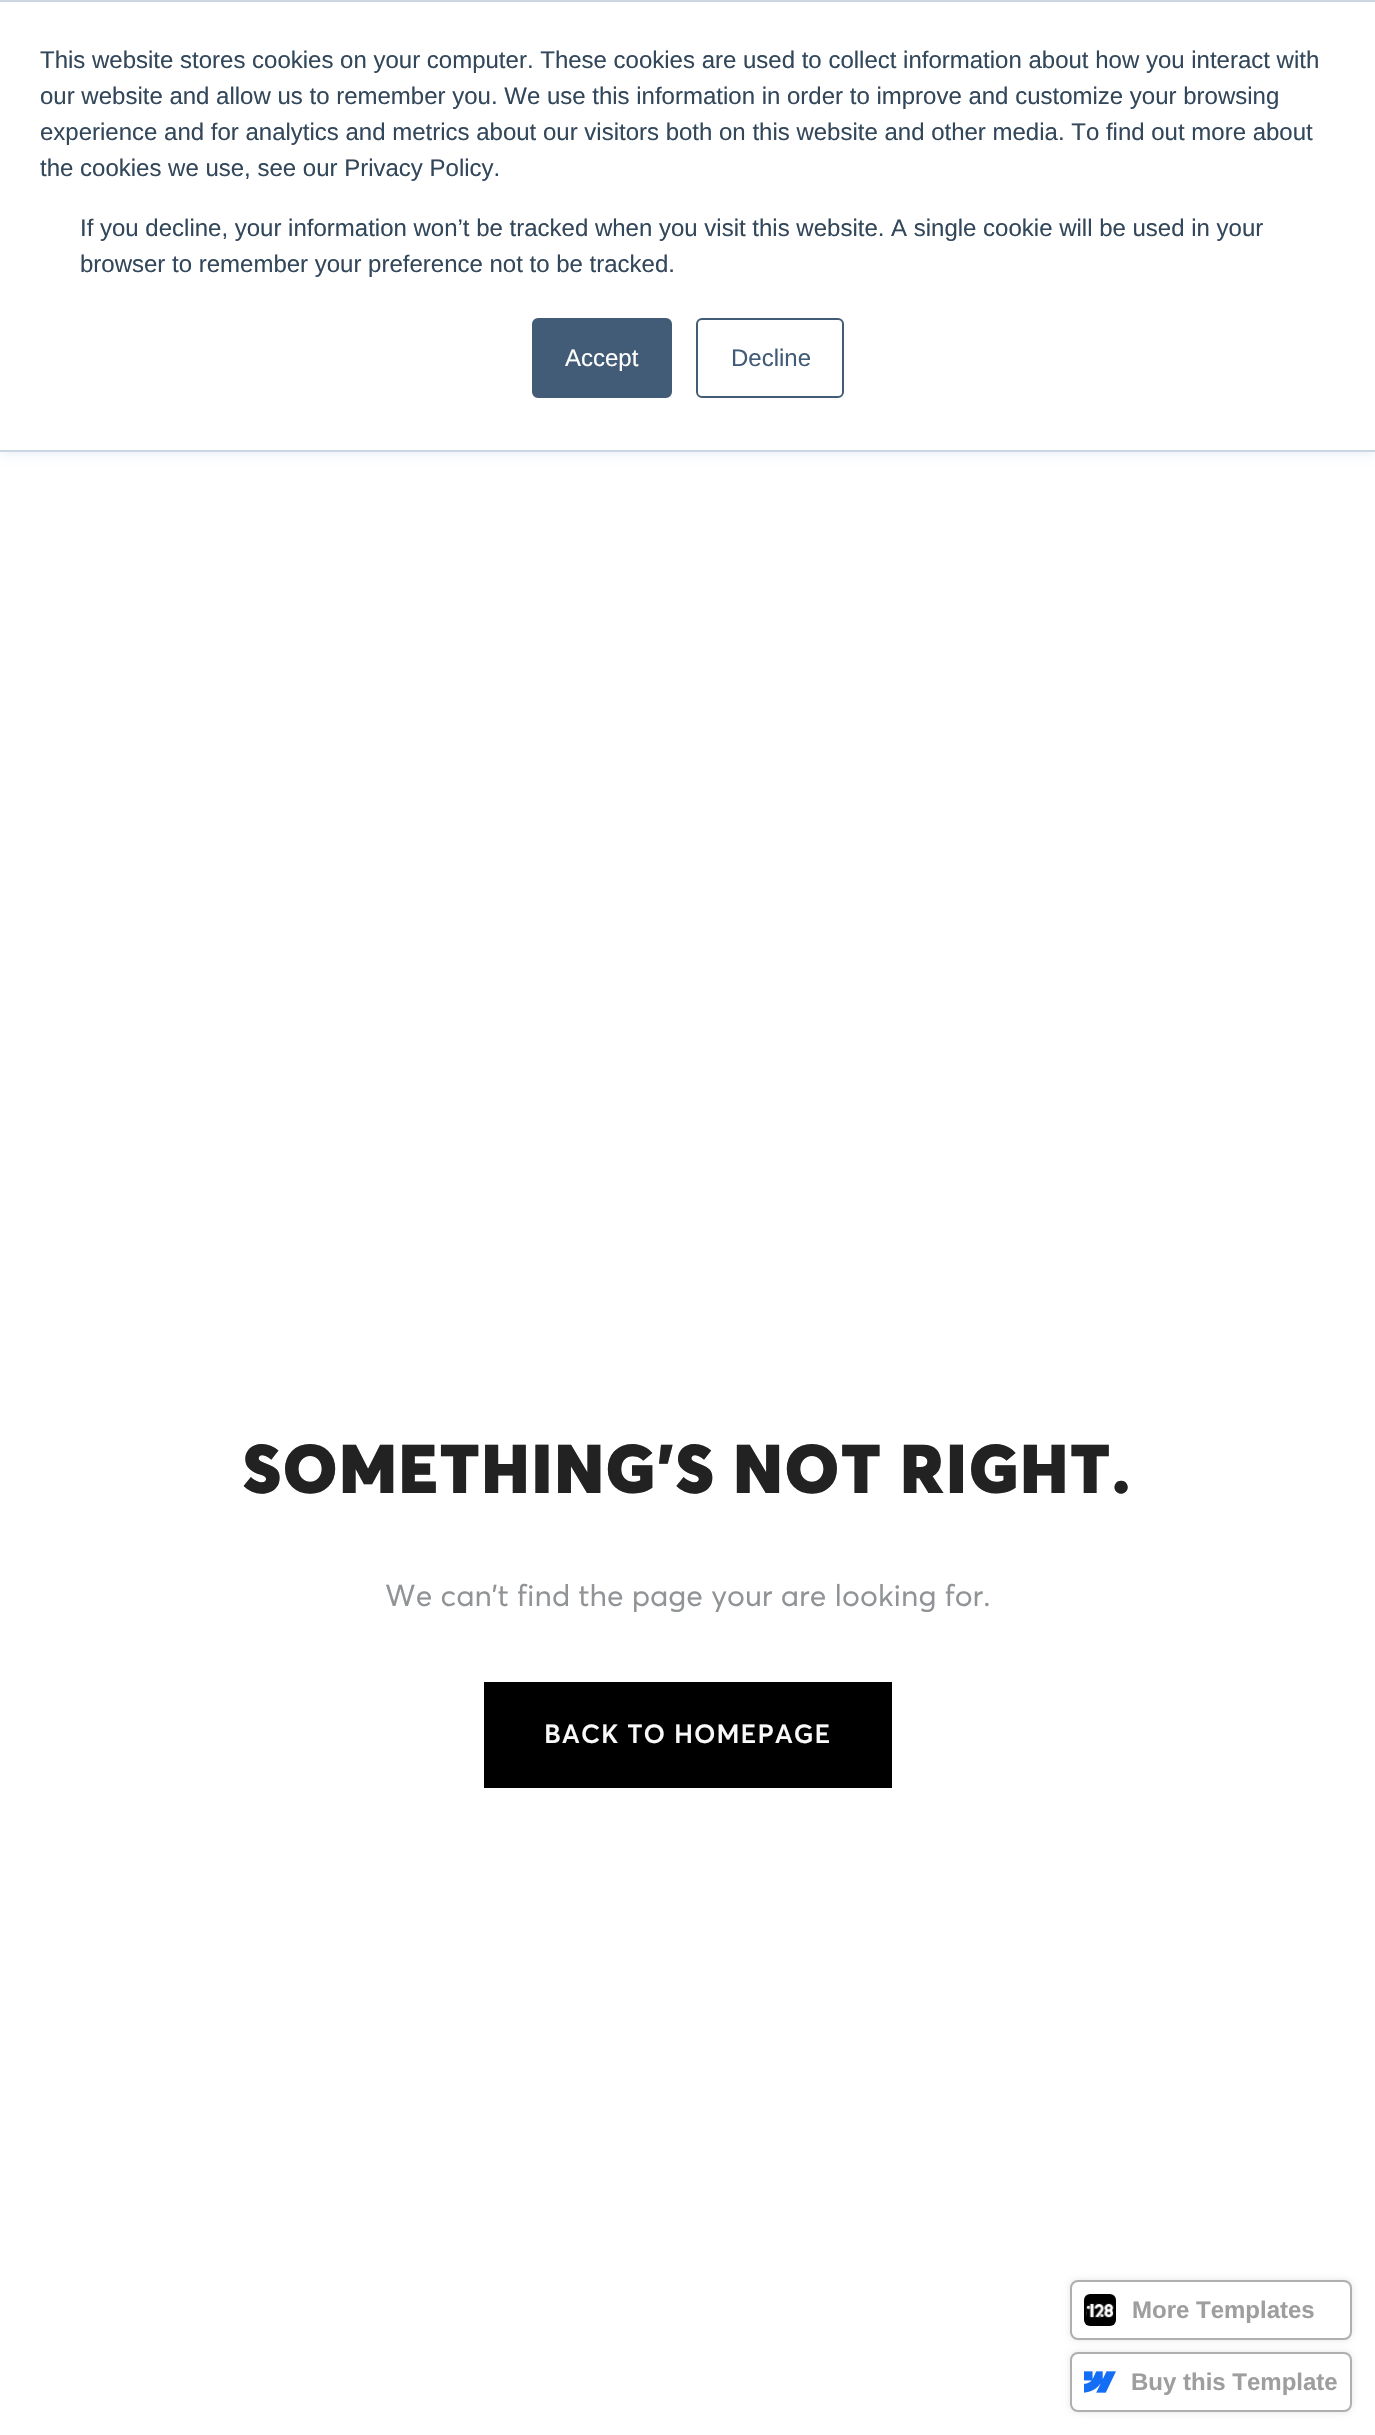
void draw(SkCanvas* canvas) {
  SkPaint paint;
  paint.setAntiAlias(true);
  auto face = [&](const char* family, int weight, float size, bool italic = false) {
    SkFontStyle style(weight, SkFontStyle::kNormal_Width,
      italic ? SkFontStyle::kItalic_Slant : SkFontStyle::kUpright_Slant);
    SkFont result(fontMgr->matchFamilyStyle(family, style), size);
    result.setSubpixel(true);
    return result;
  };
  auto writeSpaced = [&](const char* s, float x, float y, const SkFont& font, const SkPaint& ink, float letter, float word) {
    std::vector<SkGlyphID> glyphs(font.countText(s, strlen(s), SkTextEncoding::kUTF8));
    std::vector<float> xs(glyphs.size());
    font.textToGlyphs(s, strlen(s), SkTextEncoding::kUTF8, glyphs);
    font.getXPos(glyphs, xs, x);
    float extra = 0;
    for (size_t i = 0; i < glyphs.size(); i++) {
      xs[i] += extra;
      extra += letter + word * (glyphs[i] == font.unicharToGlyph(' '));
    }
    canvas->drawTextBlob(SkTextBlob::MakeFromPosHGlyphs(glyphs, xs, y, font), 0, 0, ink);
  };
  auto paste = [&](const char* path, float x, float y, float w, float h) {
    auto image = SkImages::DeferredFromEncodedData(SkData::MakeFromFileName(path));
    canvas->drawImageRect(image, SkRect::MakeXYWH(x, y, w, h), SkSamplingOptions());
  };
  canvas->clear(0xffffffff);
  paint.setColor(0xffeaf0f6);
  paint.setMaskFilter(SkMaskFilter::MakeBlur(kNormal_SkBlurStyle, 5));
  canvas->drawRect(SkRect::MakeXYWH(0, 2, 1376, 452), paint);
  paint.setMaskFilter(nullptr);
  {
    const struct { float x, y, w, h; SkColor color; } items[] = {
      {0, 2, 1375, 448, 0xffffffff},
      {0, 0, 1375, 2, 0xffcbd6e2},
      {0, 450, 1375, 2, 0xffcbd6e2},
    };
    for (auto [x, y, w, h, color] : items) {
      paint.setColor(color);
      canvas->drawRect(SkRect::MakeXYWH(x, y, w, h), paint);
    }
  }
  paint.setColor(0xff425b76);
  canvas->drawRoundRect(SkRect::MakeXYWH(533, 319, 138, 78), 5, 5, paint);
  paint.setStroke(true);
  paint.setStrokeWidth(2);
  canvas->drawRoundRect(SkRect::MakeXYWH(533, 319, 138, 78), 5, 5, paint);
  canvas->drawRoundRect(SkRect::MakeXYWH(697, 319, 146, 78), 5, 5, paint);
  paint.setStroke(false);
  paint.setColor(0xff000000);
  canvas->drawRect(SkRect::MakeXYWH(484, 1682, 408, 106), paint);
  paint.setColor(0x1a000000);
  paint.setMaskFilter(SkMaskFilter::MakeBlur(kNormal_SkBlurStyle, 3));
  canvas->drawRoundRect(SkRect::MakeXYWH(1070, 2280, 282, 60), 8, 8, paint);
  paint.setMaskFilter(nullptr);
  paint.setColor(0xffffffff);
  canvas->drawRoundRect(SkRect::MakeXYWH(1071, 2281, 280, 58), 7, 7, paint);
  paint.setStroke(true);
  paint.setColor(0xffafafaf);
  canvas->drawRoundRect(SkRect::MakeXYWH(1071, 2281, 280, 58), 7, 7, paint);
  paste("img/1.png", 1084, 2294, 32, 32);
  paint.setStroke(false);
  paint.setColor(0x1a000000);
  paint.setMaskFilter(SkMaskFilter::MakeBlur(kNormal_SkBlurStyle, 3));
  canvas->drawRoundRect(SkRect::MakeXYWH(1070, 2352, 282, 60), 8, 8, paint);
  paint.setMaskFilter(nullptr);
  paint.setColor(0xffffffff);
  canvas->drawRoundRect(SkRect::MakeXYWH(1071, 2353, 280, 58), 7, 7, paint);
  paint.setStroke(true);
  paint.setColor(0xffafafaf);
  canvas->drawRoundRect(SkRect::MakeXYWH(1071, 2353, 280, 58), 7, 7, paint);
  paste("img/2.png", 1084, 2371, 32, 22);
  auto f0 = face("Liberation Sans", 400, 24);
  paint.setStroke(false);
  paint.setColor(0xff33475b);
  {
    const struct { const char* s; float x, y; } items[] = {
      {"This website stores cookies on your computer. These cookies are used to collect information about how you interact with", 40, 68},
      {"our website and allow us to remember you. We use this information in order to improve and customize your browsing", 40, 104},
      {"experience and for analytics and metrics about our visitors both on this website and other media. To find out more about", 40, 140},
      {"the cookies we use, see our Privacy Policy.", 40, 176},
      {"If you decline, your information won’t be tracked when you visit this website. A single cookie will be used in your", 80, 236},
      {"browser to remember your preference not to be tracked.", 80, 272},
    };
    for (auto [s, x, y] : items) {
      canvas->drawString(s, x, y, f0, paint);
    }
  }
  paint.setColor(0xffffffff);
  canvas->drawString("Accept", 565, 366, f0, paint);
  paint.setColor(0xff425b76);
  canvas->drawString("Decline", 731, 366, f0, paint);
  auto f1 = face("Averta", 900, 68);
  paint.setColor(0xff222222);
  writeSpaced("SOMETHING’S NOT RIGHT.", 243, 1493, f1, paint, 2, 0);
  auto f2 = face("Averta", 400, 30);
  paint.setColor(0xff919496);
  canvas->drawString("We can’t find the page your are looking for.", 385, 1606, f2, paint);
  auto f3 = face("Averta", 600, 26);
  paint.setColor(0xfff9f9fa);
  writeSpaced("BACK TO HOMEPAGE", 544, 1743, f3, paint, 1, 0);
  auto f4 = face("Liberation Sans", 700, 24);
  paint.setColor(0xff9e9e9e);
  canvas->drawString("More Templates", 1132, 2318, f4, paint);
  canvas->drawString("Buy this Template", 1131, 2390, f4, paint);
}
